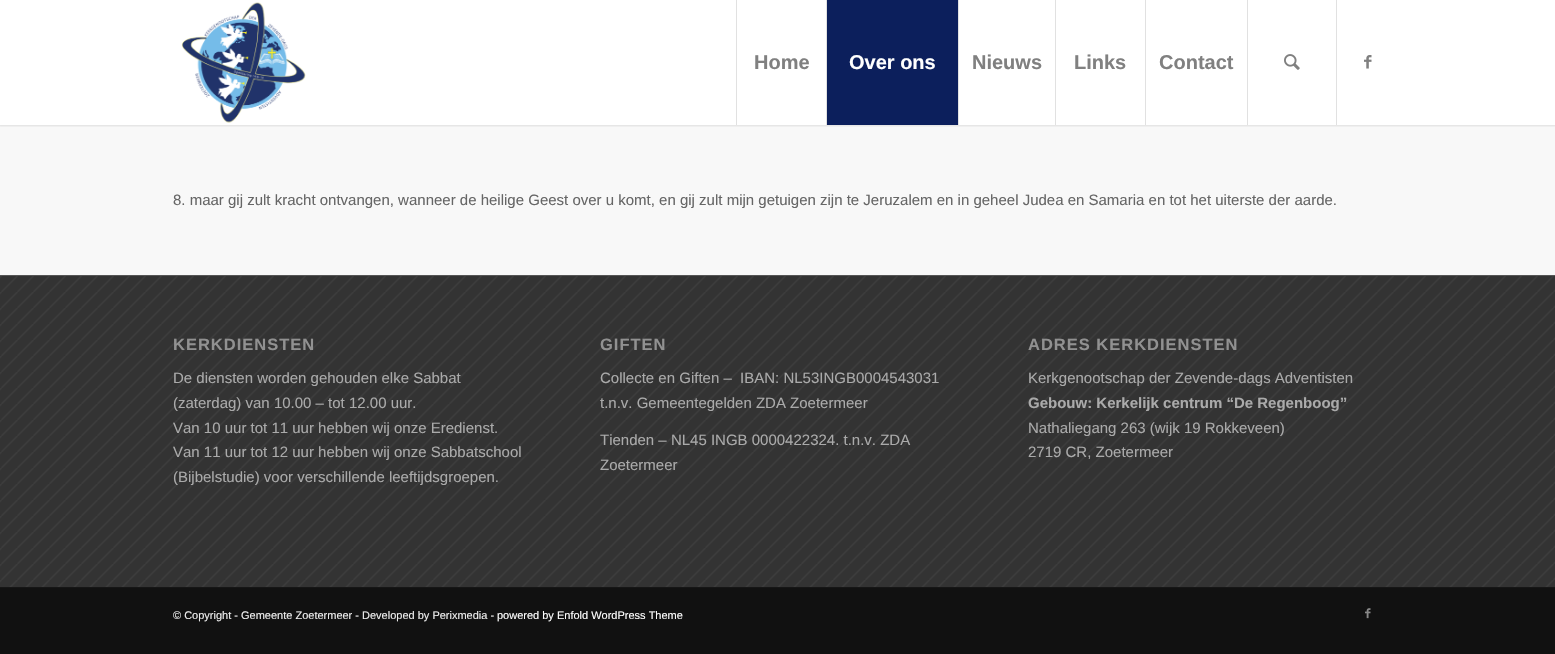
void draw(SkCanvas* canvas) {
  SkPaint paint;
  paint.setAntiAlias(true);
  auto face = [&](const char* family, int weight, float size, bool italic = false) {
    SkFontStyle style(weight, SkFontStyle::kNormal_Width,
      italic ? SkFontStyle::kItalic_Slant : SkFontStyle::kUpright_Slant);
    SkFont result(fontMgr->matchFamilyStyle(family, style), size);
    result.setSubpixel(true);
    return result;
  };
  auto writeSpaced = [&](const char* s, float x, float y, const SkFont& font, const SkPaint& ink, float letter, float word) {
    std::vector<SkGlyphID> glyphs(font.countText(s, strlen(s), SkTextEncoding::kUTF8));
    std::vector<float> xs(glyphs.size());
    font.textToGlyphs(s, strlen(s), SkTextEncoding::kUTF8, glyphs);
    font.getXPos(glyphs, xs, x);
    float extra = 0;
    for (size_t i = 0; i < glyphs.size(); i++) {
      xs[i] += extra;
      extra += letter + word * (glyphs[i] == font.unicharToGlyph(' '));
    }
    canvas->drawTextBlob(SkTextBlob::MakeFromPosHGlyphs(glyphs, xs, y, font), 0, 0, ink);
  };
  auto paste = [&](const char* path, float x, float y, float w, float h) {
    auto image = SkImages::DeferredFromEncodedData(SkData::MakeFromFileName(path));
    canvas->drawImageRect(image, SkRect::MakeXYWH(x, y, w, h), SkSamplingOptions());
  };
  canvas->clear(0xff111111);
  paint.setColor(0xffffffff);
  canvas->drawRect(SkRect::MakeXYWH(0, 0, 1555, 125), paint);
  paint.setColor(0xfff8f8f8);
  canvas->drawRect(SkRect::MakeXYWH(0, 125, 1555, 150), paint);
  canvas->save();
  canvas->clipRect(SkRect::MakeXYWH(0, 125, 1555, 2));
  paint.setColor(0x1a000000);
  paint.setMaskFilter(SkMaskFilter::MakeBlur(kNormal_SkBlurStyle, 1));
  canvas->drawRect(SkRect::MakeXYWH(-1, -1, 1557, 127), paint);
  paint.setMaskFilter(nullptr);
  canvas->restore();
  paste("img/1.png", 181, 2, 125, 121);
  {
    const struct { float x, y, w, h; SkColor color; } items[] = {
      {736, 0, 1, 125, 0xffe1e1e1},
      {827, 0, 131, 125, 0xff0c1f5c},
      {826, 0, 1, 125, 0xffe1e1e1},
      {958, 0, 1, 125, 0xffe1e1e1},
      {1055, 0, 1, 125, 0xffe1e1e1},
      {1145, 0, 1, 125, 0xffe1e1e1},
      {1336, 0, 1, 125, 0xffe1e1e1},
      {1247, 0, 1, 125, 0xffe1e1e1},
    };
    for (auto [x, y, w, h, color] : items) {
      paint.setColor(color);
      canvas->drawRect(SkRect::MakeXYWH(x, y, w, h), paint);
    }
  }
  paste("img/2.png", 1284, 54, 16, 16);
  paste("img/3.png", 1364, 55, 8, 14);
  paint.setColor(0xff333333);
  canvas->drawRect(SkRect::MakeXYWH(0, 276, 1555, 311), paint);
  paste("img/4.png", 0, 276, 1555, 311);
  paint.setColor(0xff555555);
  canvas->drawRect(SkRect::MakeXYWH(0, 275, 1555, 1), paint);
  paint.setColor(0xff161616);
  canvas->drawRect(SkRect::MakeXYWH(0, 587, 1555, 1), paint);
  paste("img/5.png", 1365, 608, 6, 11);
  auto f0 = face("Liberation Sans", 700, 20);
  paint.setColor(0xff808080);
  canvas->drawString("Home", 754, 69, f0, paint);
  paint.setColor(0xffffffff);
  canvas->drawString("Over ons", 849, 69, f0, paint);
  paint.setColor(0xff808080);
  {
    const struct { const char* s; float x, y; } items[] = {
      {"Nieuws", 972, 69},
      {"Links", 1074, 69},
      {"Contact", 1159, 69},
    };
    for (auto [s, x, y] : items) {
      canvas->drawString(s, x, y, f0, paint);
    }
  }
  auto f1 = face("Liberation Sans", 400, 15);
  paint.setColor(0xff666666);
  canvas->drawString("8. maar gij zult kracht ontvangen, wanneer de heilige Geest over u komt, en gij zult mijn getuigen zijn te Jeruzalem en in geheel Judea en Samaria en tot het uiterste der aarde.", 173, 205, f1, paint);
  auto f2 = face("Liberation Sans", 700, 16.5f);
  paint.setColor(0xff919191);
  writeSpaced("KERKDIENSTEN", 173, 350, f2, paint, 1, 0);
  paint.setColor(0xffaaaaaa);
  {
    const struct { const char* s; float x, y; } items[] = {
      {"De diensten worden gehouden elke Sabbat", 173, 383},
      {"(zaterdag) van 10.00 – tot 12.00 uur.", 173, 408},
      {"Van 10 uur tot 11 uur hebben wij onze Eredienst.", 173, 433},
      {"Van 11 uur tot 12 uur hebben wij onze Sabbatschool", 173, 457},
      {"(Bijbelstudie) voor verschillende leeftijdsgroepen.", 173, 482},
    };
    for (auto [s, x, y] : items) {
      canvas->drawString(s, x, y, f1, paint);
    }
  }
  paint.setColor(0xff919191);
  writeSpaced("GIFTEN", 600, 350, f2, paint, 1, 0);
  paint.setColor(0xffaaaaaa);
  {
    const struct { const char* s; float x, y; } items[] = {
      {"Collecte en Giften –  IBAN: NL53INGB0004543031", 600, 383},
      {"t.n.v. Gemeentegelden ZDA Zoetermeer", 600, 408},
      {"Tienden – NL45 INGB 0000422324. t.n.v. ZDA", 600, 445},
      {"Zoetermeer", 600, 470},
    };
    for (auto [s, x, y] : items) {
      canvas->drawString(s, x, y, f1, paint);
    }
  }
  paint.setColor(0xff919191);
  writeSpaced("ADRES KERKDIENSTEN", 1028, 350, f2, paint, 1, 0);
  paint.setColor(0xffaaaaaa);
  canvas->drawString("Kerkgenootschap der Zevende-dags Adventisten", 1028, 383, f1, paint);
  auto f3 = face("Liberation Sans", 700, 15);
  canvas->drawString("Gebouw: Kerkelijk centrum “De Regenboog”", 1028, 408, f3, paint);
  canvas->drawString("Nathaliegang 263 (wijk 19 Rokkeveen)", 1028, 433, f1, paint);
  canvas->drawString("2719 CR, Zoetermeer", 1028, 457, f1, paint);
  auto f4 = face("Liberation Sans", 400, 11);
  paint.setColor(0xffeeeeee);
  canvas->drawString("© Copyright - Gemeente Zoetermeer - Developed by Perixmedia -", 173, 619, f4, paint);
  paint.setColor(0xffffffff);
  canvas->drawString("powered by Enfold WordPress Theme", 497, 619, f4, paint);
}
